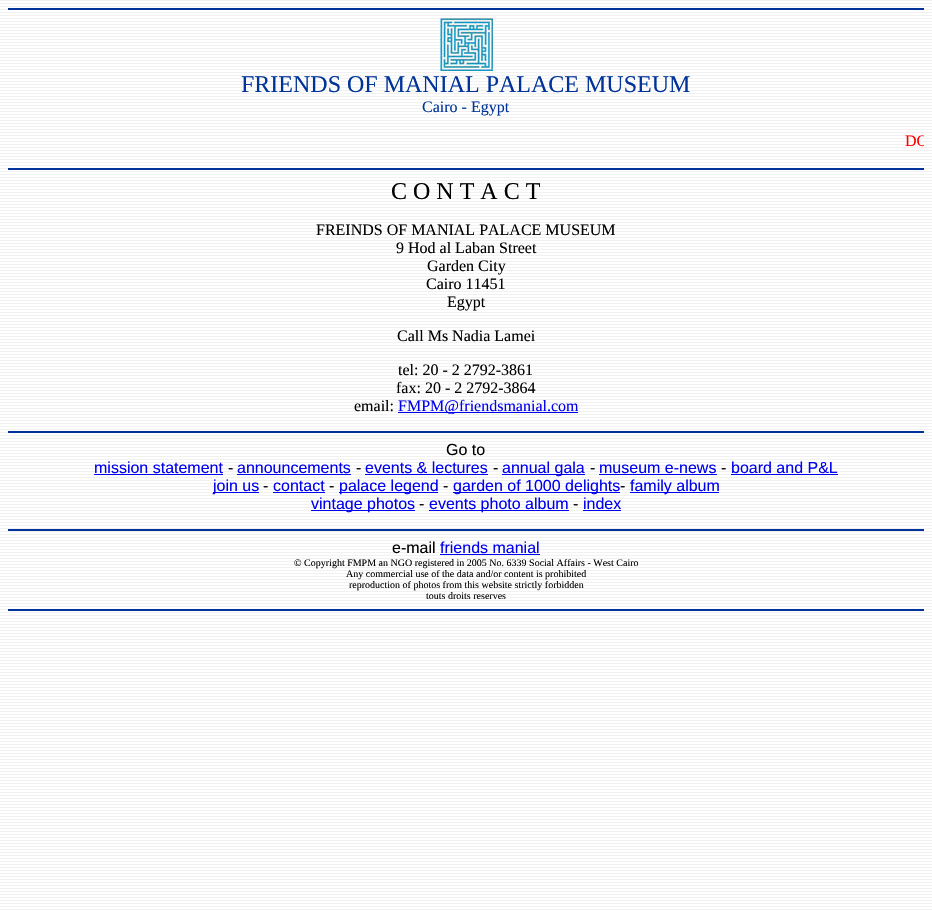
void draw(SkCanvas* canvas) {
  SkPaint paint;
  paint.setAntiAlias(true);
  auto face = [&](const char* family, int weight, float size, bool italic = false) {
    SkFontStyle style(weight, SkFontStyle::kNormal_Width,
      italic ? SkFontStyle::kItalic_Slant : SkFontStyle::kUpright_Slant);
    SkFont result(fontMgr->matchFamilyStyle(family, style), size);
    result.setSubpixel(true);
    return result;
  };
  auto paste = [&](const char* path, float x, float y, float w, float h) {
    auto image = SkImages::DeferredFromEncodedData(SkData::MakeFromFileName(path));
    canvas->drawImageRect(image, SkRect::MakeXYWH(x, y, w, h), SkSamplingOptions());
  };
  canvas->clear(0xffffffff);
  paste("img/1.png", 0, 0, 932, 910);
  paint.setColor(0xff003399);
  canvas->drawRect(SkRect::MakeXYWH(8, 8, 916, 2), paint);
  paste("img/2.png", 440, 18, 53, 53);
  {
    const struct { float x, y, w, h; SkColor color; } items[] = {
      {8, 168, 916, 2, 0xff003399},
      {398, 412, 180, 1, 0xff0000ee},
      {8, 431, 916, 2, 0xff003399},
      {94, 474, 129, 1, 0xff0000ee},
      {237, 474, 114, 1, 0xff0000ee},
      {365, 474, 123, 1, 0xff0000ee},
      {502, 474, 83, 1, 0xff0000ee},
      {599, 474, 118, 1, 0xff0000ee},
      {731, 474, 107, 1, 0xff0000ee},
      {213, 492, 46, 1, 0xff0000ee},
      {273, 492, 52, 1, 0xff0000ee},
      {339, 492, 99, 1, 0xff0000ee},
      {453, 492, 167, 1, 0xff0000ee},
      {630, 492, 89, 1, 0xff0000ee},
      {311, 510, 104, 1, 0xff0000ee},
      {429, 510, 140, 1, 0xff0000ee},
      {583, 510, 38, 1, 0xff0000ee},
      {8, 529, 916, 2, 0xff003399},
      {440, 554, 100, 1, 0xff0000ee},
      {8, 609, 916, 2, 0xff003399},
    };
    for (auto [x, y, w, h, color] : items) {
      paint.setColor(color);
      canvas->drawRect(SkRect::MakeXYWH(x, y, w, h), paint);
    }
  }
  auto f0 = face("Liberation Serif", 400, 24);
  canvas->drawString("FRIENDS OF MANIAL PALACE MUSEUM", 241, 92, f0, paint);
  auto f1 = face("Liberation Serif", 400, 16);
  canvas->drawString("Cairo - Egypt", 422, 112, f1, paint);
  canvas->save();
  canvas->clipRect(SkRect::MakeXYWH(8, 132, 916, 20));
  paint.setColor(0xffff0000);
  canvas->drawString("DO", 905, 146, f1, paint);
  canvas->restore();
  paint.setColor(0xff000000);
  canvas->drawString("C O N T A C T", 391, 199, f0, paint);
  {
    const struct { const char* s; float x, y; } items[] = {
      {"FREINDS OF MANIAL PALACE MUSEUM", 316, 235},
      {"9 Hod al Laban Street", 396, 253},
      {"Garden City", 427, 271},
      {"Cairo 11451", 426, 289},
      {"Egypt", 447, 307},
      {"Call Ms Nadia Lamei", 397, 341},
      {"tel: 20 - 2 2792-3861", 398, 375},
      {"fax: 20 - 2 2792-3864", 396, 393},
      {"email:", 354, 411},
    };
    for (auto [s, x, y] : items) {
      canvas->drawString(s, x, y, f1, paint);
    }
  }
  paint.setColor(0xff0000ee);
  canvas->drawString("FMPM@friendsmanial.com", 398, 411, f1, paint);
  auto f2 = face("Liberation Sans", 400, 16);
  paint.setColor(0xff000000);
  canvas->drawString("Go to", 446, 455, f2, paint);
  paint.setColor(0xff0000ee);
  canvas->drawString("mission statement", 94, 473, f2, paint);
  paint.setColor(0xff000000);
  canvas->drawString("-", 228, 473, f2, paint);
  paint.setColor(0xff0000ee);
  canvas->drawString("announcements", 237, 473, f2, paint);
  paint.setColor(0xff000000);
  canvas->drawString("-", 356, 473, f2, paint);
  paint.setColor(0xff0000ee);
  canvas->drawString("events & lectures", 365, 473, f2, paint);
  paint.setColor(0xff000000);
  canvas->drawString("-", 493, 473, f2, paint);
  paint.setColor(0xff0000ee);
  canvas->drawString("annual gala", 502, 473, f2, paint);
  paint.setColor(0xff000000);
  canvas->drawString("-", 590, 473, f2, paint);
  paint.setColor(0xff0000ee);
  canvas->drawString("museum e-news", 599, 473, f2, paint);
  paint.setColor(0xff000000);
  canvas->drawString("-", 721, 473, f2, paint);
  paint.setColor(0xff0000ee);
  canvas->drawString("board and P&L", 731, 473, f2, paint);
  canvas->drawString("join us", 213, 491, f2, paint);
  paint.setColor(0xff000000);
  canvas->drawString("-", 263, 491, f2, paint);
  paint.setColor(0xff0000ee);
  canvas->drawString("contact", 273, 491, f2, paint);
  paint.setColor(0xff000000);
  canvas->drawString("-", 329, 491, f2, paint);
  paint.setColor(0xff0000ee);
  canvas->drawString("palace legend", 339, 491, f2, paint);
  paint.setColor(0xff000000);
  canvas->drawString("-", 443, 491, f2, paint);
  paint.setColor(0xff0000ee);
  canvas->drawString("garden of 1000 delights", 453, 491, f2, paint);
  paint.setColor(0xff000000);
  canvas->drawString("-", 620, 491, f2, paint);
  paint.setColor(0xff0000ee);
  canvas->drawString("family album", 630, 491, f2, paint);
  canvas->drawString("vintage photos", 311, 509, f2, paint);
  paint.setColor(0xff000000);
  canvas->drawString("-", 419, 509, f2, paint);
  paint.setColor(0xff0000ee);
  canvas->drawString("events photo album", 429, 509, f2, paint);
  paint.setColor(0xff000000);
  canvas->drawString("-", 573, 509, f2, paint);
  paint.setColor(0xff0000ee);
  canvas->drawString("index", 583, 509, f2, paint);
  paint.setColor(0xff000000);
  canvas->drawString("e-mail", 392, 553, f2, paint);
  paint.setColor(0xff0000ee);
  canvas->drawString("friends manial", 440, 553, f2, paint);
  auto f3 = face("Liberation Serif", 400, 10);
  paint.setColor(0xff000000);
  {
    const struct { const char* s; float x, y; } items[] = {
      {"© Copyright FMPM an NGO registered in 2005 No. 6339 Social Affairs - West Cairo", 294, 566},
      {"Any commercial use of the data and/or content is prohibited", 346, 577},
      {"reproduction of photos from this website strictly forbidden", 349, 588},
      {"touts droits reserves", 426, 599},
    };
    for (auto [s, x, y] : items) {
      canvas->drawString(s, x, y, f3, paint);
    }
  }
}
